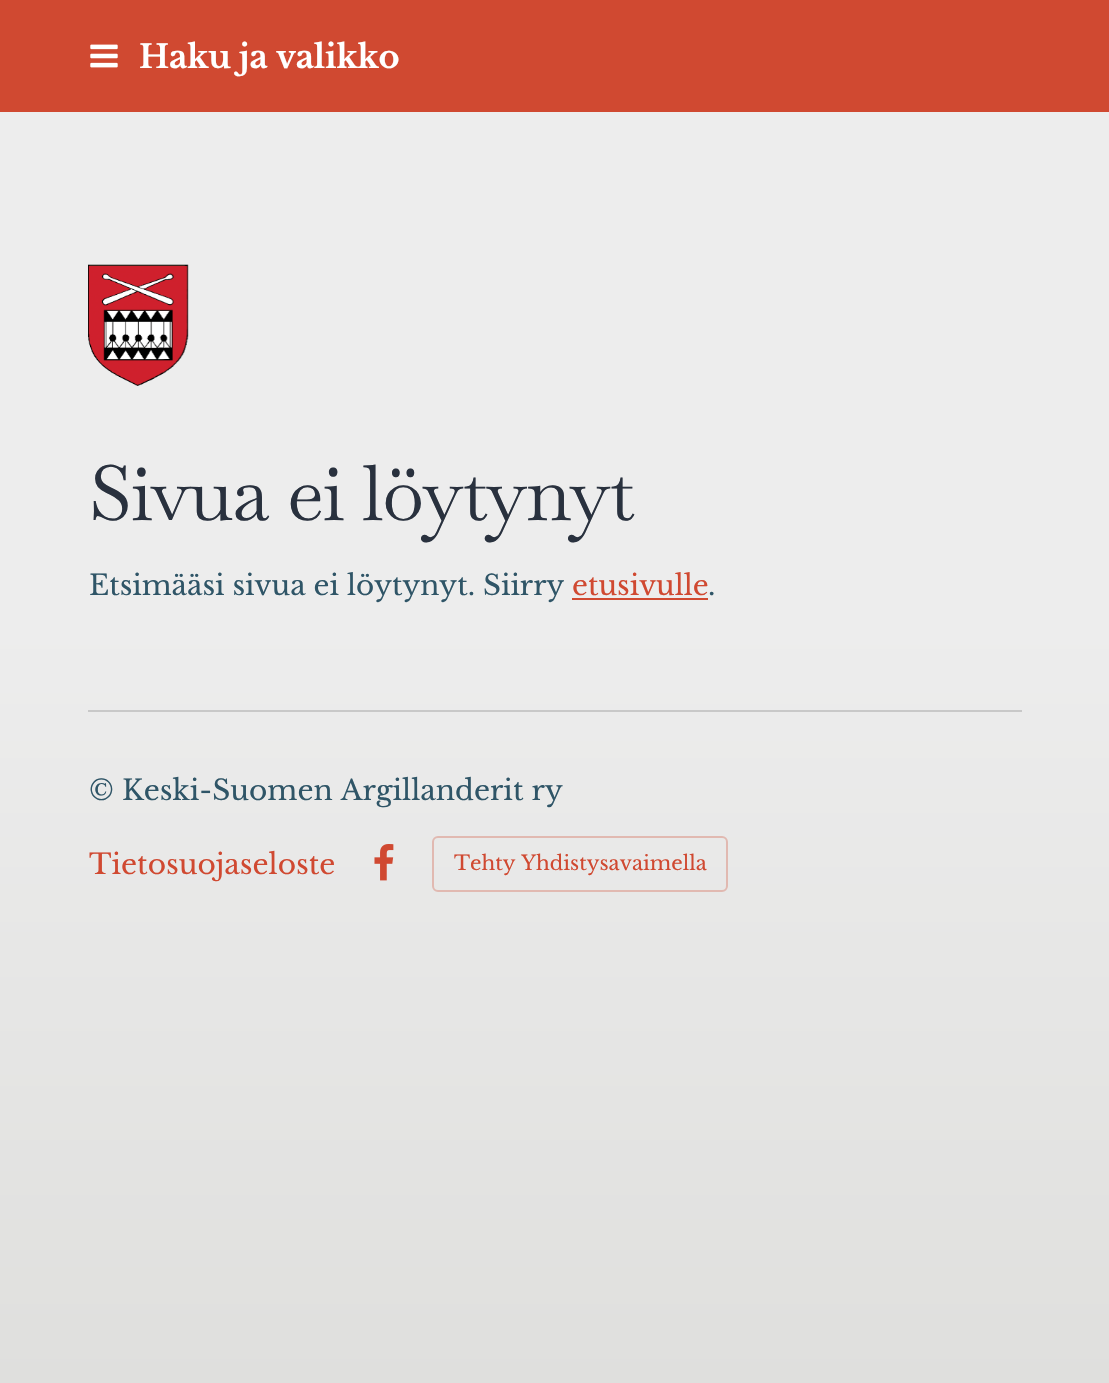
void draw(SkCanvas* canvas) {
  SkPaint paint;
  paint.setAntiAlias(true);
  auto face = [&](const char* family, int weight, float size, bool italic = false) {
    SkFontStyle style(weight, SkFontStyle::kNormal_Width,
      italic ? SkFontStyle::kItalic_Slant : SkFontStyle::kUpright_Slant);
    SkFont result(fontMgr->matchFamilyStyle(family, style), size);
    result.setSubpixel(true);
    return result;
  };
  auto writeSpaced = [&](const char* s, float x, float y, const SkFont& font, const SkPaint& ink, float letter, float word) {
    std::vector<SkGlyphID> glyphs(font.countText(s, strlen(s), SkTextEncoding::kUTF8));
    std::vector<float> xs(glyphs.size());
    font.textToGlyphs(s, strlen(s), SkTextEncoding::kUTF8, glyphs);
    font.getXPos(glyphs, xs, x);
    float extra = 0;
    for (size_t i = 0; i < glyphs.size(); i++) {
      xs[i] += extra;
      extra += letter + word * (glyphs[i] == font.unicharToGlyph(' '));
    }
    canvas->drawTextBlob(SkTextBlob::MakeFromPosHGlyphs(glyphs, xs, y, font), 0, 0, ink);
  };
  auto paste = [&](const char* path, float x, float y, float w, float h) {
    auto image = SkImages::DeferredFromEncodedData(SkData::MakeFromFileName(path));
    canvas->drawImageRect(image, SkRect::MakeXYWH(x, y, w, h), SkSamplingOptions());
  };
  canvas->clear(0xffffffff);
  paint.setColor(0xffd04931);
  canvas->drawRect(SkRect::MakeXYWH(0, 0, 1109, 112), paint);
  paste("img/1.png", 90, 44, 28, 24);
  {
    const SkColor colors[] = {0xffededed, 0xffdfdfdd};
    const float stops[] = {0.4f, 1};
    const SkPoint ends[] = {{555, 112}, {555, 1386}};
    paint.setShader(SkGradientShader::MakeLinear(ends, colors, stops, 2, SkTileMode::kClamp));
    paint.setAlpha(255);
  }
  canvas->drawRect(SkRect::MakeXYWH(0, 112, 1109, 1271), paint);
  paste("img/2.png", 88, 264, 101, 122);
  paint.setShader(nullptr);
  paint.setColor(0xffd04931);
  canvas->drawRect(SkRect::MakeXYWH(572, 598, 136, 2), paint);
  paint.setColor(0xffc8c8c8);
  canvas->drawRect(SkRect::MakeXYWH(88, 710, 934, 2), paint);
  paste("img/3.png", 374, 844, 20, 37);
  paint.setStroke(true);
  paint.setStrokeWidth(2);
  paint.setColor(0xffe1b9b1);
  canvas->drawRoundRect(SkRect::MakeXYWH(433, 837, 294, 54), 5, 5, paint);
  auto f0 = face("Libre Baskerville", 700, 32);
  paint.setStroke(false);
  paint.setColor(0xffffffff);
  writeSpaced("Haku ja valikko", 139, 68, f0, paint, -0.2f, 0);
  auto f1 = face("Baskervville", 400, 76.5f);
  paint.setColor(0xff29313e);
  writeSpaced("Sivua ei löytynyt", 89, 520, f1, paint, -1.1f, 0);
  auto f2 = face("Libre Baskerville", 400, 27.8f);
  paint.setColor(0xff2f5567);
  canvas->drawString("Etsimääsi sivua ei löytynyt. Siirry", 89, 595, f2, paint);
  paint.setColor(0xffd04931);
  canvas->drawString("etusivulle", 572, 595, f2, paint);
  paint.setColor(0xff2f5567);
  canvas->drawString(".", 708, 595, f2, paint);
  auto f3 = face("Libre Baskerville", 400, 28);
  canvas->drawString("© Keski-Suomen Argillanderit ry", 89, 800, f3, paint);
  paint.setColor(0xffd04931);
  canvas->drawString("Tietosuojaseloste", 89, 874, f3, paint);
  auto f4 = face("Libre Baskerville", 400, 20);
  canvas->drawString("Tehty Yhdistysavaimella", 454, 870, f4, paint);
}
